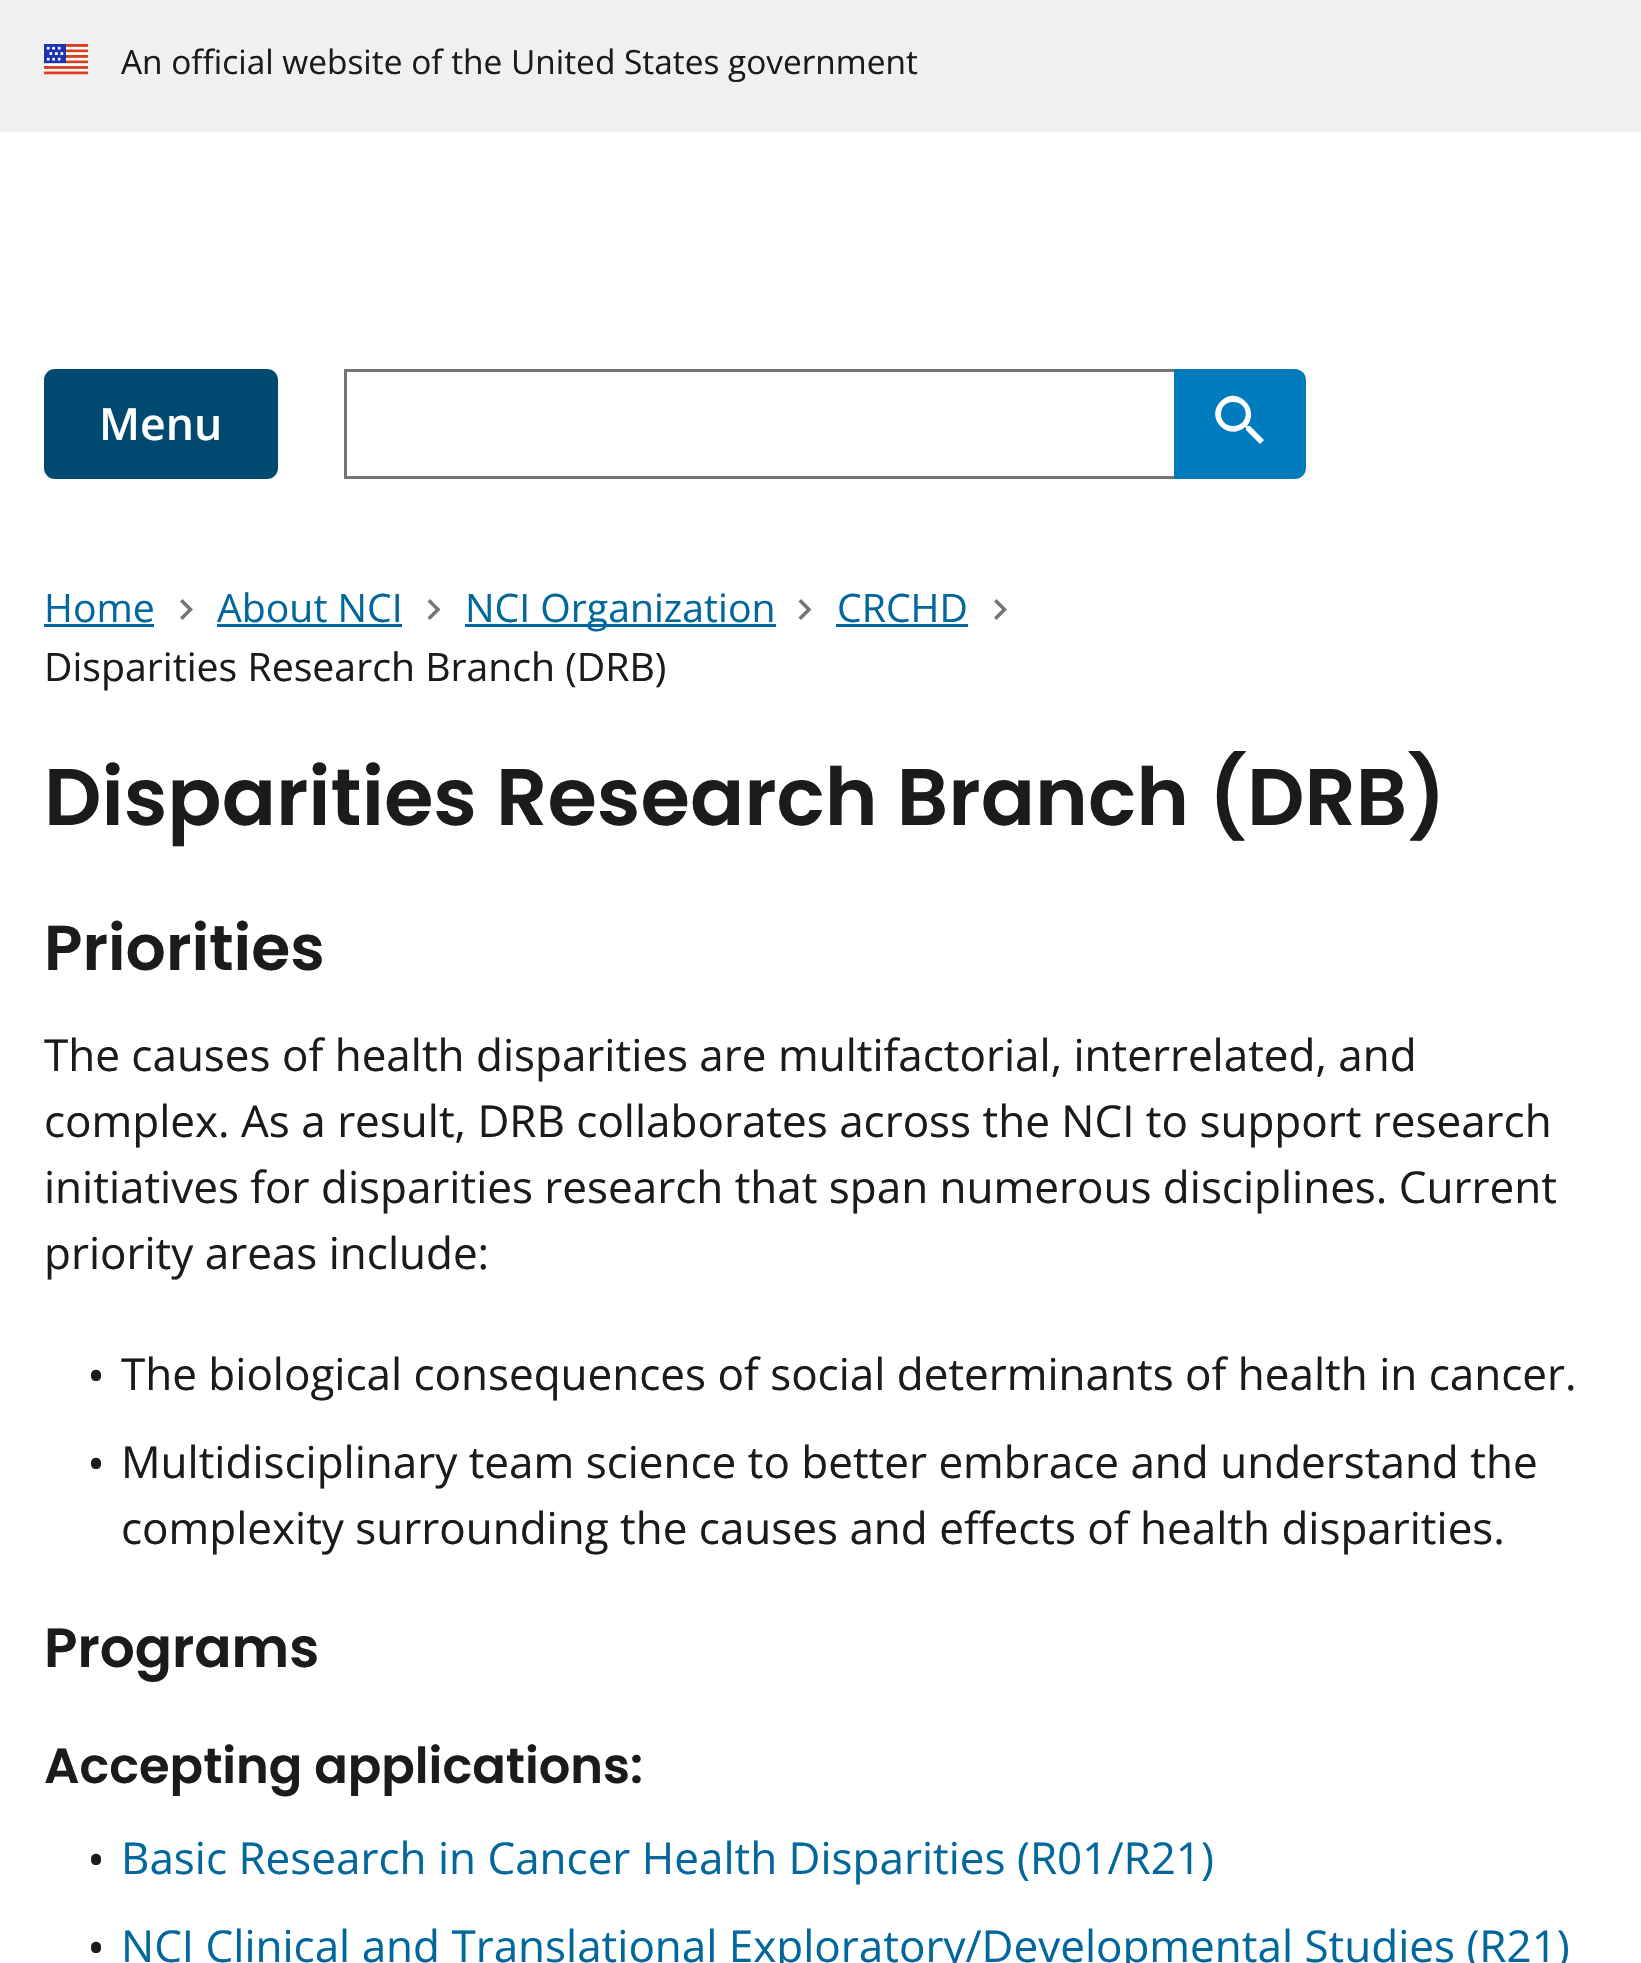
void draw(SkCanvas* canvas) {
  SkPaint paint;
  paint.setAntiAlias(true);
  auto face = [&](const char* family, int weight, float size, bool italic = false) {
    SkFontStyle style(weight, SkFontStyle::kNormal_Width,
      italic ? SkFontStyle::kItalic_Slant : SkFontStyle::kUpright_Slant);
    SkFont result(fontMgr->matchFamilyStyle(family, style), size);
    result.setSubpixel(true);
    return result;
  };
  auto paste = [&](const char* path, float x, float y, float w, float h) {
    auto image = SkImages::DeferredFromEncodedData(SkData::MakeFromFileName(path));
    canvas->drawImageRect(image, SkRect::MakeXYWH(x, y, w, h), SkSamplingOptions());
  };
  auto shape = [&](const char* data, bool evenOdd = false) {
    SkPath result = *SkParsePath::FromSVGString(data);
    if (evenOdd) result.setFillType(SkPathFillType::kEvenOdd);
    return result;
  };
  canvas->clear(0xffffffff);
  paint.setColor(0xfff0f0f0);
  canvas->drawRect(SkRect::MakeXYWH(0, 0, 1641, 132), paint);
  paste("img/1.png", 44, 44, 44, 31);
  paint.setColor(0xff004971);
  canvas->drawRoundRect(SkRect::MakeXYWH(44, 369, 234, 110), 11, 11, paint);
  {
    const struct { float x, y, w, h; SkColor color; } items[] = {
      {344, 369, 830, 3, 0xff757575},
      {344, 476, 830, 3, 0xff757575},
      {344, 369, 3, 110, 0xff757575},
    };
    for (auto [x, y, w, h, color] : items) {
      paint.setColor(color);
      canvas->drawRect(SkRect::MakeXYWH(x, y, w, h), paint);
    }
  }
  paint.setColor(0xff007bbd);
  canvas->drawPath(shape("M1174 369H1295C1301 369 1306 374 1306 380V468C1306 474 1301 479 1295 479H1174Z"), paint);
  paint.setColor(0xffffffff);
  canvas->drawPath(shape("M1250 426H1248H1247C1261 409 1237 385 1221 401C1204 418 1228 442 1245 427L1246 428V430L1260 444L1264 440ZM1233 426C1217 426 1217 402 1233 402C1250 402 1250 426 1233 426Z"), paint);
  paint.setColor(0xff01679d);
  canvas->drawRect(SkRect::MakeXYWH(44, 624, 110, 3), paint);
  paint.setColor(0xff71767a);
  canvas->drawPath(shape("M182.5 599L180 601.5L188 609.5L180 617.5L182.5 620L193 609.5Z"), paint);
  paint.setColor(0xff01679d);
  canvas->drawRect(SkRect::MakeXYWH(217, 624, 185, 3), paint);
  paint.setColor(0xff71767a);
  canvas->drawPath(shape("M430 599L427.5 601.5L435.5 609.5L427.5 617.5L430 620L440.5 609.5Z"), paint);
  paint.setColor(0xff01679d);
  canvas->drawRect(SkRect::MakeXYWH(465, 624, 311, 3), paint);
  paint.setColor(0xff71767a);
  canvas->drawPath(shape("M801 599L798.5 601.5L806.5 609.5L798.5 617.5L801 620L811.5 609.5Z"), paint);
  paint.setColor(0xff01679d);
  canvas->drawRect(SkRect::MakeXYWH(836, 624, 132, 3), paint);
  paint.setColor(0xff71767a);
  canvas->drawPath(shape("M996.5 599L994 601.5L1002 609.5L994 617.5L996.5 620L1007 609.5Z"), paint);
  auto f0 = face("Open Sans", 400, 33.4f);
  paint.setColor(0xff1b1b1b);
  canvas->drawString("An official website of the United States government", 121, 74, f0, paint);
  auto f1 = face("Open Sans", 600, 44.5f);
  paint.setColor(0xffffffff);
  canvas->drawString("Menu", 99, 440, f1, paint);
  auto f2 = face("Open Sans", 400, 39.2f);
  paint.setColor(0xff01679d);
  {
    const struct { const char* s; float x, y; } items[] = {
      {"Home", 44, 622},
      {"About NCI", 217, 622},
      {"NCI Organization", 465, 622},
      {"CRCHD", 837, 622},
    };
    for (auto [s, x, y] : items) {
      canvas->drawString(s, x, y, f2, paint);
    }
  }
  paint.setColor(0xff1b1b1b);
  canvas->drawString("Disparities Research Branch (DRB)", 44, 681, f2, paint);
  auto f3 = face("Poppins", 600, 80.1f);
  canvas->drawString("Disparities Research Branch (DRB)", 44, 825, f3, paint);
  auto f4 = face("Poppins", 600, 63.25f);
  canvas->drawString("Priorities", 44, 970, f4, paint);
  auto f5 = face("Open Sans", 400, 44);
  {
    const struct { const char* s; float x, y; } items[] = {
      {"The causes of health disparities are multifactorial, interrelated, and", 44, 1071},
      {"complex. As a result, DRB collaborates across the NCI to support research", 44, 1137},
      {"initiatives for disparities research that span numerous disciplines. Current", 44, 1203},
      {"priority areas include:", 44, 1269},
    };
    for (auto [s, x, y] : items) {
      canvas->drawString(s, x, y, f5, paint);
    }
  }
  auto f6 = face("Open Sans", 400, 48);
  canvas->drawString("•", 87, 1393, f6, paint);
  canvas->drawString("The biological consequences of social determinants of health in cancer.", 121, 1390, f5, paint);
  canvas->drawString("•", 87, 1481, f6, paint);
  canvas->drawString("Multidisciplinary team science to better embrace and understand the", 121, 1478, f5, paint);
  canvas->drawString("complexity surrounding the causes and effects of health disparities.", 121, 1544, f5, paint);
  auto f7 = face("Poppins", 600, 55);
  canvas->drawString("Programs", 44, 1667, f7, paint);
  auto f8 = face("Poppins", 600, 49.5f);
  canvas->drawString("Accepting applications:", 44, 1783, f8, paint);
  canvas->drawString("•", 87, 1877, f6, paint);
  paint.setColor(0xff01679d);
  canvas->drawString("Basic Research in Cancer Health Disparities (R01/R21)", 121, 1874, f5, paint);
  paint.setColor(0xff1b1b1b);
  canvas->drawString("•", 87, 1965, f6, paint);
  paint.setColor(0xff01679d);
  canvas->drawString("NCI Clinical and Translational Exploratory/Developmental Studies (R21)", 121, 1962, f5, paint);
}
